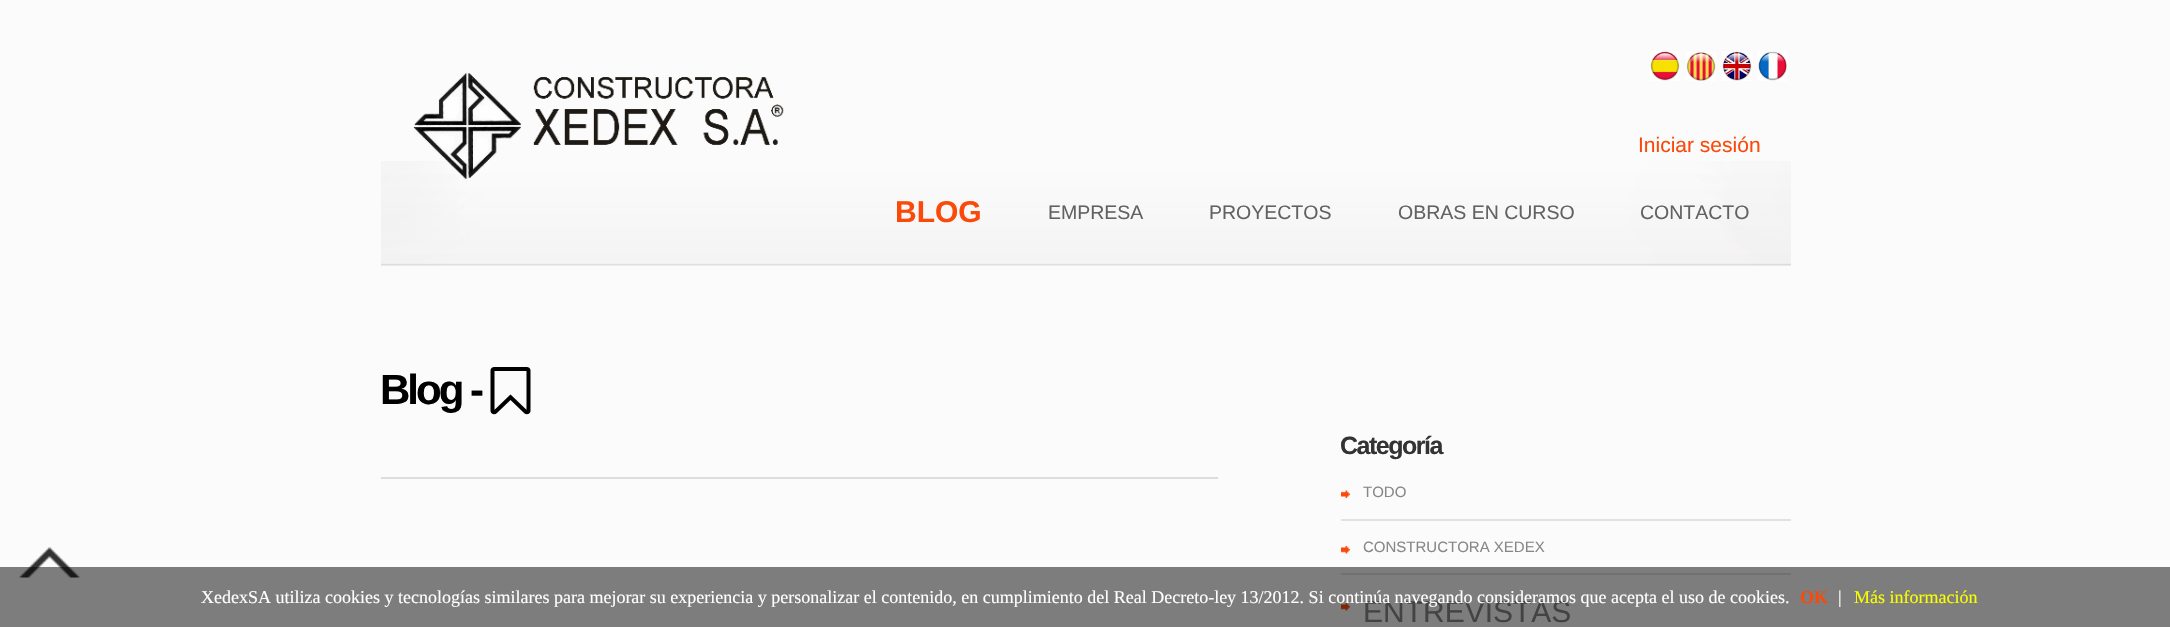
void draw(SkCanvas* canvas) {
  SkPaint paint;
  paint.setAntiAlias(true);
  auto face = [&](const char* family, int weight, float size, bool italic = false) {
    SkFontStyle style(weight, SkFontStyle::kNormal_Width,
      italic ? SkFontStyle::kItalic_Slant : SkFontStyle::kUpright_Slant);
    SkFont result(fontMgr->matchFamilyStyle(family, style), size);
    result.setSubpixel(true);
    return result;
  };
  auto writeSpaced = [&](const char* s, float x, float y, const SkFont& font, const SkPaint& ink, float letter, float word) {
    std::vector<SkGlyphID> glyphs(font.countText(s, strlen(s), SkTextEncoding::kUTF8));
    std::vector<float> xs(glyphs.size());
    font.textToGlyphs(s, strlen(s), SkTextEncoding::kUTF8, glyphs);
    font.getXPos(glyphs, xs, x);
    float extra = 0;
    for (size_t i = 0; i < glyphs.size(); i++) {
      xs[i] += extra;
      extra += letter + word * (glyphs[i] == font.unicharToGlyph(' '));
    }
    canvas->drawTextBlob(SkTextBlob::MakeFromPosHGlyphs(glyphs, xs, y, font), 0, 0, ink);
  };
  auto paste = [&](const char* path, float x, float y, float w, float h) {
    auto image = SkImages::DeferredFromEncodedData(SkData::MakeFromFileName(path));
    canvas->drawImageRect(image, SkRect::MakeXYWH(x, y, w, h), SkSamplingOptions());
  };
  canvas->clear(0xfffbfbfb);
  paste("img/1.png", 19, 547, 61, 31);
  paste("img/2.png", 1650, 51, 30, 30);
  paste("img/3.png", 1686, 52, 30, 29);
  paste("img/4.png", 1722, 51, 30, 30);
  paste("img/5.png", 1758, 51, 29, 30);
  paste("img/6.png", 381, 161, 1410, 105);
  paste("img/7.png", 413, 73, 371, 106);
  paste("img/8.png", 490, 367, 41, 48);
  paint.setColor(0xffdddddd);
  canvas->drawRect(SkRect::MakeXYWH(381, 477, 837, 2), paint);
  paint.setColor(0xffe3e2e0);
  canvas->drawRect(SkRect::MakeXYWH(1341, 519, 450, 2), paint);
  paste("img/9.png", 1341, 490, 9, 8);
  canvas->drawRect(SkRect::MakeXYWH(1341, 573, 450, 2), paint);
  paste("img/10.png", 1341, 546, 9, 8);
  paste("img/10.png", 1341, 603, 9, 8);
  auto f0 = face("Liberation Sans", 400, 21);
  paint.setColor(0xfffa4909);
  canvas->drawString("Iniciar sesión", 1638, 152, f0, paint);
  auto f1 = face("Liberation Sans", 700, 30);
  canvas->drawString("BLOG", 895, 222, f1, paint);
  auto f2 = face("Liberation Sans", 400, 19.5f);
  paint.setColor(0xff626262);
  {
    const struct { const char* s; float x, y; } items[] = {
      {"EMPRESA", 1048, 219},
      {"PROYECTOS", 1209, 219},
      {"OBRAS EN CURSO", 1398, 219},
      {"CONTACTO", 1640, 219},
    };
    for (auto [s, x, y] : items) {
      canvas->drawString(s, x, y, f2, paint);
    }
  }
  auto f3 = face("Liberation Sans", 700, 42);
  paint.setColor(0xff000000);
  writeSpaced("Blog -", 380, 404, f3, paint, -3, 0);
  auto f4 = face("Liberation Sans", 700, 25);
  paint.setColor(0xff333333);
  writeSpaced("Categoría", 1340, 454, f4, paint, -1.5f, 0);
  auto f5 = face("Liberation Sans", 400, 15);
  paint.setColor(0xff878786);
  canvas->drawString("TODO", 1363, 497, f5, paint);
  canvas->drawString("CONSTRUCTORA XEDEX", 1363, 552, f5, paint);
  auto f6 = face("Liberation Sans", 400, 30);
  canvas->drawString("ENTREVISTAS", 1363, 622, f6, paint);
  paint.setColor(0x80000000);
  canvas->drawRect(SkRect::MakeXYWH(0, 567, 2170, 60), paint);
  auto f7 = face("Liberation Serif", 400, 18);
  paint.setColor(0xffffffff);
  canvas->drawString("XedexSA utiliza cookies y tecnologías similares para mejorar su experiencia y personalizar el contenido, en cumplimiento del Real Decreto-ley 13/2012. Si continúa navegando consideramos que acepta el uso de cookies.", 201, 603, f7, paint);
  auto f8 = face("Liberation Serif", 700, 18);
  paint.setColor(0xfffa4909);
  canvas->drawString("OK", 1800, 603, f8, paint);
  paint.setColor(0xffffffff);
  canvas->drawString("|", 1838, 603, f7, paint);
  paint.setColor(0xfffaff00);
  canvas->drawString("Más información", 1854, 603, f7, paint);
}
